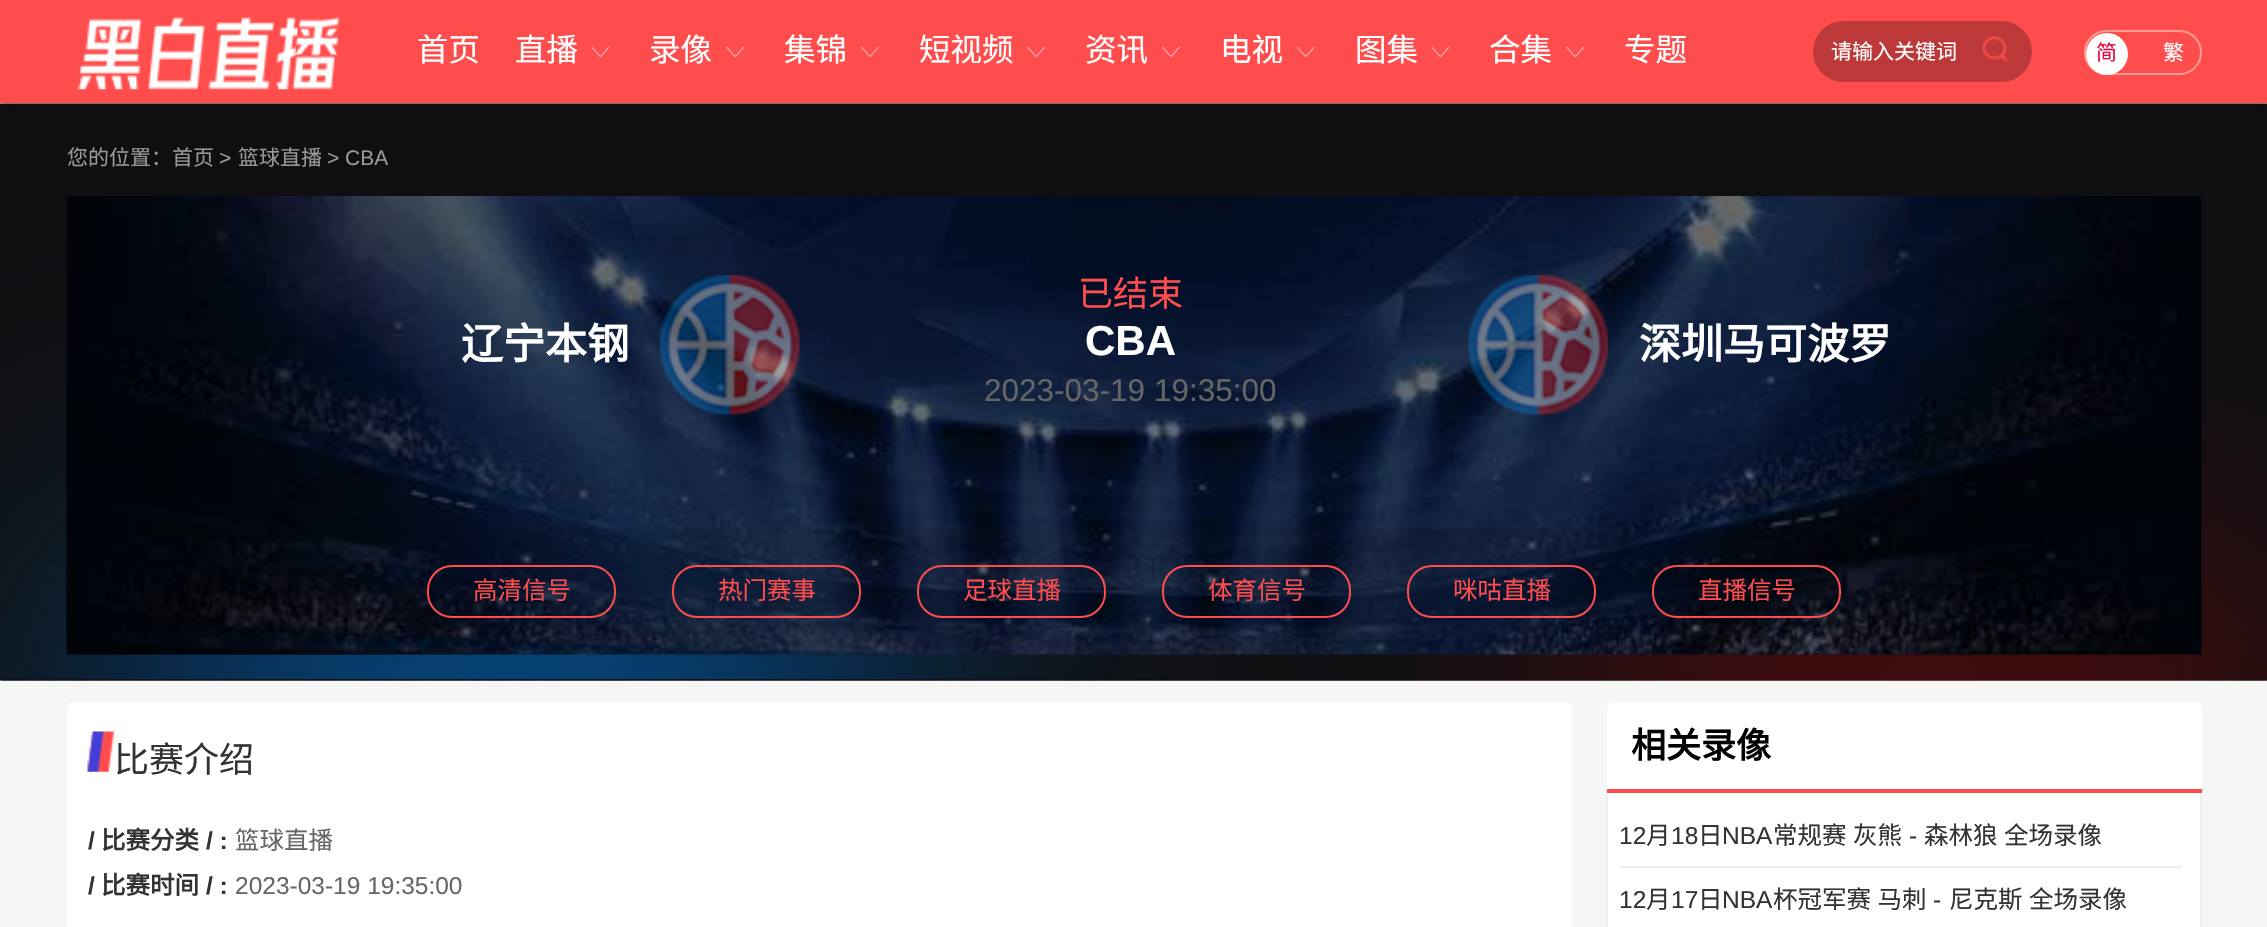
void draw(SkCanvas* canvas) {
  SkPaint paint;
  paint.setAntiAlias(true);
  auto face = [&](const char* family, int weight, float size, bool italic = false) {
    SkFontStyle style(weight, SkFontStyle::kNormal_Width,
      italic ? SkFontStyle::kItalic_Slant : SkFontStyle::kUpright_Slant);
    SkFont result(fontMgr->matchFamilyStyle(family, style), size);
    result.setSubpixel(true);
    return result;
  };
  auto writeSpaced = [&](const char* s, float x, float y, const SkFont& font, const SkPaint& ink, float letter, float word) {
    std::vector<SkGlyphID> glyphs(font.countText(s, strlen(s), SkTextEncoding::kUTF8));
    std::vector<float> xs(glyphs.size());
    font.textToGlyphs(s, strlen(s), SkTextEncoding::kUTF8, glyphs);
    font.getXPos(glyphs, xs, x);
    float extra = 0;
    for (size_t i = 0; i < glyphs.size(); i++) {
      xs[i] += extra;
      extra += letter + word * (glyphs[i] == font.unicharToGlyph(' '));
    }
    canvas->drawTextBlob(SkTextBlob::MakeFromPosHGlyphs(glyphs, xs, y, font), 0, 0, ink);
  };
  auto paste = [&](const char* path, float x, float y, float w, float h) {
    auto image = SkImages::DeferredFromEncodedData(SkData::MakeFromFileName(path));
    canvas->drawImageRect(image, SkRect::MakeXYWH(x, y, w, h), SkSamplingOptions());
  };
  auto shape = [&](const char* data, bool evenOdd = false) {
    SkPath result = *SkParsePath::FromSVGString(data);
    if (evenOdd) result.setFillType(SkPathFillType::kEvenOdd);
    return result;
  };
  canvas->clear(0xfff6f6f6);
  paint.setColor(0xffff4d4d);
  canvas->drawRect(SkRect::MakeXYWH(0, 0, 2267, 103), paint);
  paste("img/1.png", 76, 17, 264, 73);
  paste("img/2.png", 591, 46, 19, 11);
  paste("img/3.png", 726, 46, 18, 11);
  paste("img/4.png", 861, 46, 18, 11);
  paste("img/3.png", 1027, 46, 18, 11);
  paste("img/4.png", 1162, 46, 18, 11);
  paste("img/5.png", 1296, 46, 19, 11);
  paste("img/2.png", 1431, 46, 19, 11);
  paste("img/3.png", 1566, 46, 18, 11);
  paint.setColor(0xffbd3939);
  canvas->drawRoundRect(SkRect::MakeXYWH(1813, 21, 219, 61), 30.5f, 30.5f, paint);
  paste("img/6.png", 1982, 36, 26, 26);
  paint.setStroke(true);
  paint.setStrokeWidth(2);
  paint.setColor(0xffff9b90);
  canvas->drawRoundRect(SkRect::MakeXYWH(2085, 31, 116, 43), 21.5f, 21.5f, paint);
  paint.setStroke(false);
  paint.setColor(0xffffffff);
  canvas->drawCircle(2107, 54, 21, paint);
  paste("img/7.png", 0, 103, 2267, 578);
  paste("img/8.png", 66, 196, 2136, 459);
  paste("img/9.png", 660, 275, 140, 140);
  paste("img/10.png", 1468, 275, 140, 140);
  paint.setColor(0x1a000000);
  canvas->drawRect(SkRect::MakeXYWH(84, 529, 2072, 126), paint);
  paint.setStroke(true);
  paint.setColor(0xffff4d4d);
  canvas->drawRoundRect(SkRect::MakeXYWH(428, 566, 187, 51), 24, 24, paint);
  canvas->drawRoundRect(SkRect::MakeXYWH(673, 566, 187, 51), 24, 24, paint);
  canvas->drawRoundRect(SkRect::MakeXYWH(918, 566, 187, 51), 24, 24, paint);
  canvas->drawRoundRect(SkRect::MakeXYWH(1163, 566, 187, 51), 24, 24, paint);
  canvas->drawRoundRect(SkRect::MakeXYWH(1408, 566, 187, 51), 24, 24, paint);
  canvas->drawRoundRect(SkRect::MakeXYWH(1653, 566, 187, 51), 24, 24, paint);
  paint.setStroke(false);
  paint.setColor(0xffffffff);
  canvas->drawRoundRect(SkRect::MakeXYWH(67, 702, 1505, 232), 7, 7, paint);
  paste("img/11.png", 87, 731, 27, 41);
  canvas->drawPath(shape("M1614 702H2195C2199 702 2202 705 2202 709V793H1607V709C1607 705 1610 702 1614 702Z"), paint);
  paint.setColor(0xffff4d4d);
  canvas->drawRect(SkRect::MakeXYWH(1607, 789, 595, 4), paint);
  paint.setColor(0xffffffff);
  canvas->drawRect(SkRect::MakeXYWH(1608, 793, 592, 134), paint);
  paint.setColor(0xffeeeeee);
  canvas->drawPath(shape("M1606 793H2202V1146C2202 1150 2198 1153 2194 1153H1614C1610 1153 1606 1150 1606 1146ZM1608 793H2200V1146C2200 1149 2197 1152 2194 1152H1614C1611 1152 1608 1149 1608 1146Z", true), paint);
  canvas->drawRect(SkRect::MakeXYWH(1619, 866, 563, 2), paint);
  auto f0 = face("Noto Sans CJK SC", 400, 31.5f);
  paint.setColor(0xffffffff);
  {
    const struct { const char* s; float x, y; } items[] = {
      {"首页", 417, 61},
      {"直播", 515, 61},
      {"录像", 649, 61},
      {"集锦", 784, 61},
      {"短视频", 919, 61},
      {"资讯", 1085, 61},
      {"电视", 1220, 61},
      {"图集", 1355, 61},
      {"合集", 1489, 61},
      {"专题", 1624, 61},
    };
    for (auto [s, x, y] : items) {
      canvas->drawString(s, x, y, f0, paint);
    }
  }
  auto f1 = face("Noto Sans CJK SC", 400, 21);
  canvas->drawString("请输入关键词", 1831, 59, f1, paint);
  paint.setColor(0xffe60640);
  canvas->drawString("简", 2096, 60, f1, paint);
  paint.setColor(0xffffffff);
  canvas->drawString("繁", 2163, 60, f1, paint);
  paint.setColor(0xff999999);
  canvas->drawString("您的位置：首页", 67, 165, f1, paint);
  auto f2 = face("Liberation Sans", 400, 21);
  canvas->drawString(">", 219, 165, f2, paint);
  canvas->drawString("篮球直播", 238, 165, f1, paint);
  canvas->drawString("> CBA", 327, 165, f2, paint);
  auto f3 = face("Noto Sans CJK SC", 700, 42);
  paint.setColor(0xffffffff);
  canvas->drawString("辽宁本钢", 461, 359, f3, paint);
  auto f4 = face("Noto Sans CJK SC", 400, 35);
  paint.setColor(0xffff4d4d);
  canvas->drawString("已结束", 1078, 306, f4, paint);
  auto f5 = face("Liberation Sans", 700, 42);
  paint.setColor(0xffffffff);
  canvas->drawString("CBA", 1085, 355, f5, paint);
  auto f6 = face("Liberation Sans", 400, 31.5f);
  paint.setColor(0xff666666);
  canvas->drawString("2023-03-19 19:35:00", 984, 401, f6, paint);
  paint.setColor(0xffffffff);
  canvas->drawString("深圳马可波罗", 1639, 359, f3, paint);
  auto f7 = face("Noto Sans CJK SC", 400, 24.5f);
  paint.setColor(0xffff4d4d);
  {
    const struct { const char* s; float x, y; } items[] = {
      {"高清信号", 473, 599},
      {"热门赛事", 718, 599},
      {"足球直播", 963, 599},
      {"体育信号", 1208, 599},
      {"咪咕直播", 1453, 599},
      {"直播信号", 1698, 599},
    };
    for (auto [s, x, y] : items) {
      canvas->drawString(s, x, y, f7, paint);
    }
  }
  paint.setColor(0xff333333);
  canvas->drawString("比赛介绍", 114, 772, f4, paint);
  auto f8 = face("Liberation Sans", 700, 24.5f);
  canvas->drawString("/", 88, 849, f8, paint);
  auto f9 = face("Noto Sans CJK SC", 700, 24.5f);
  canvas->drawString("比赛分类", 101, 849, f9, paint);
  canvas->drawString("/ :", 206, 849, f8, paint);
  paint.setColor(0xff666666);
  canvas->drawString("篮球直播", 235, 849, f7, paint);
  paint.setColor(0xff333333);
  canvas->drawString("/", 88, 894, f8, paint);
  canvas->drawString("比赛时间", 101, 894, f9, paint);
  canvas->drawString("/ :", 206, 894, f8, paint);
  auto f10 = face("Liberation Sans", 400, 24.5f);
  paint.setColor(0xff666666);
  canvas->drawString("2023-03-19 19:35:00", 235, 894, f10, paint);
  auto f11 = face("Noto Sans CJK SC", 700, 35);
  paint.setColor(0xff000000);
  canvas->drawString("相关录像", 1631, 758, f11, paint);
  paint.setColor(0xff333333);
  canvas->drawString("12", 1619, 844, f10, paint);
  canvas->drawString("月", 1646, 844, f7, paint);
  canvas->drawString("18", 1671, 844, f10, paint);
  canvas->drawString("日", 1698, 844, f7, paint);
  canvas->drawString("NBA", 1722, 844, f10, paint);
  writeSpaced("常规赛 灰熊", 1773, 844, f7, paint, 0, 1);
  canvas->drawString("-", 1909, 844, f10, paint);
  writeSpaced("森林狼 全场录像", 1924, 844, f7, paint, 0, 1);
  canvas->drawString("12", 1619, 908, f10, paint);
  canvas->drawString("月", 1646, 908, f7, paint);
  canvas->drawString("17", 1671, 908, f10, paint);
  canvas->drawString("日", 1698, 908, f7, paint);
  canvas->drawString("NBA", 1722, 908, f10, paint);
  writeSpaced("杯冠军赛 马刺", 1773, 908, f7, paint, 0, 1);
  canvas->drawString("-", 1933, 908, f10, paint);
  writeSpaced("尼克斯 全场录像", 1949, 908, f7, paint, 0, 1);
}
